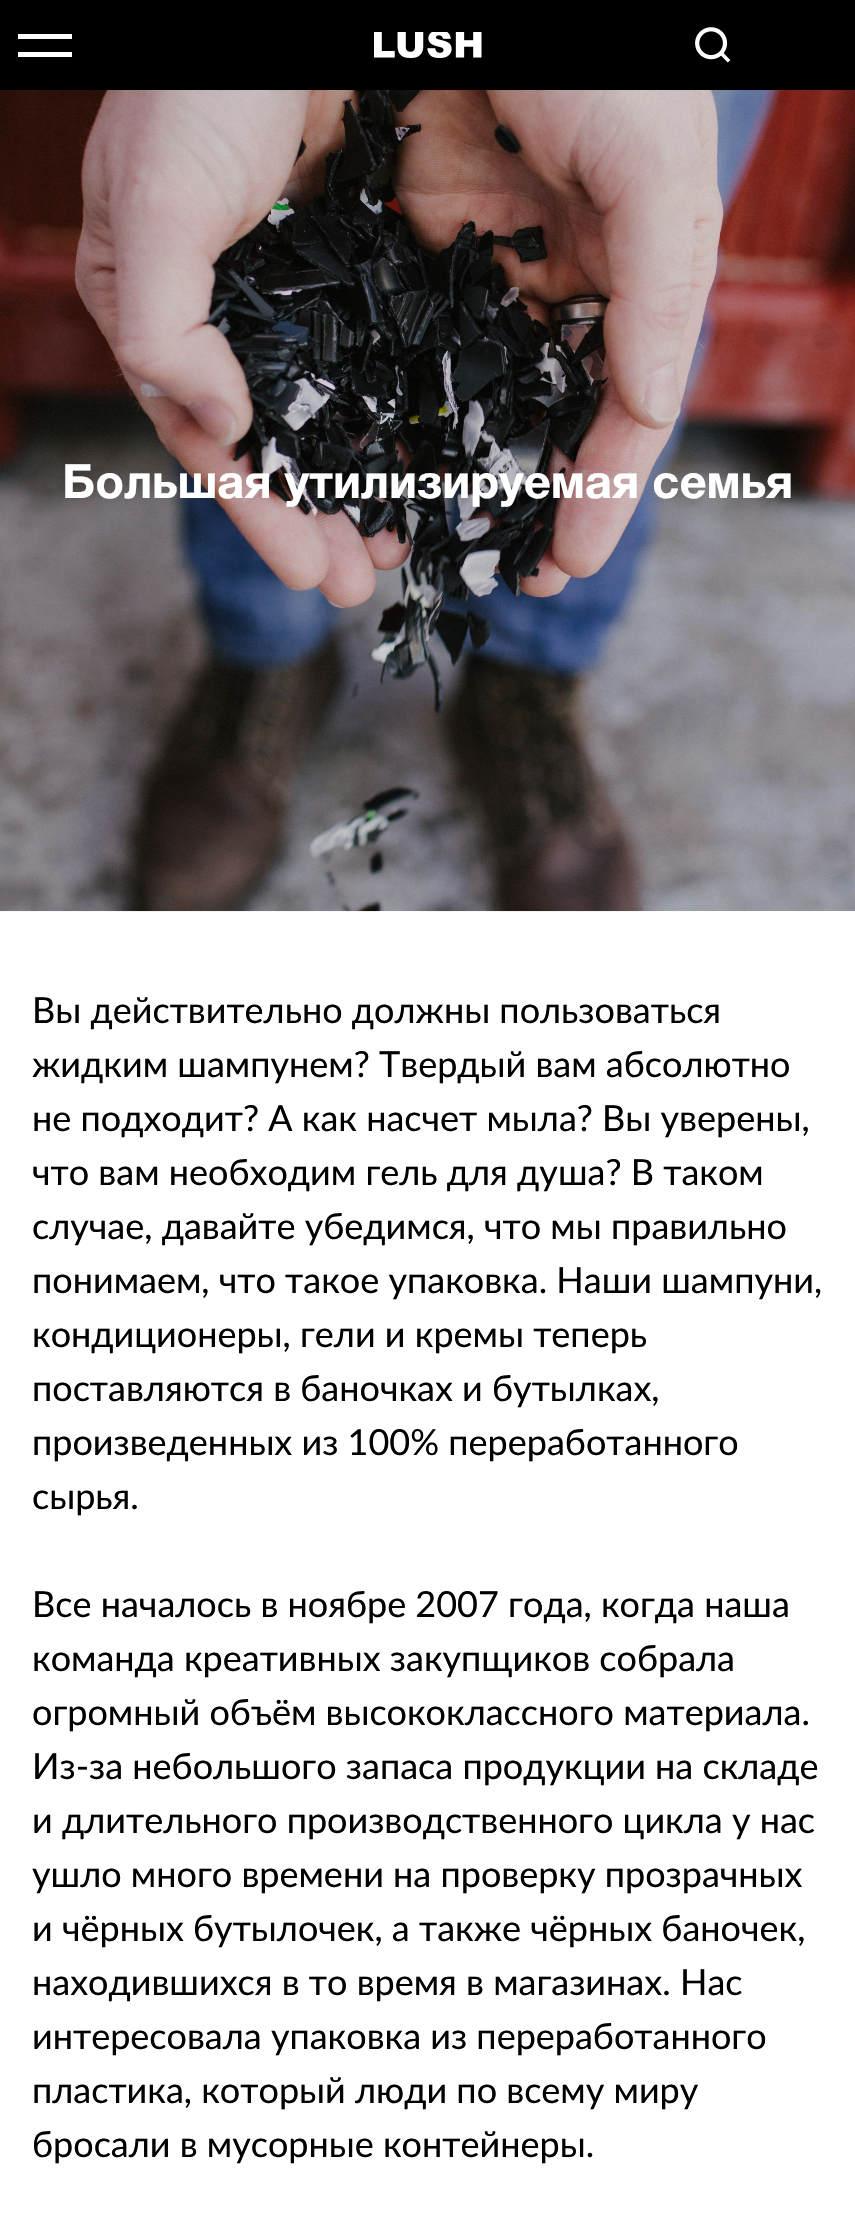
void draw(SkCanvas* canvas) {
  SkPaint paint;
  paint.setAntiAlias(true);
  auto face = [&](const char* family, int weight, float size, bool italic = false) {
    SkFontStyle style(weight, SkFontStyle::kNormal_Width,
      italic ? SkFontStyle::kItalic_Slant : SkFontStyle::kUpright_Slant);
    SkFont result(fontMgr->matchFamilyStyle(family, style), size);
    result.setSubpixel(true);
    return result;
  };
  auto paste = [&](const char* path, float x, float y, float w, float h) {
    auto image = SkImages::DeferredFromEncodedData(SkData::MakeFromFileName(path));
    canvas->drawImageRect(image, SkRect::MakeXYWH(x, y, w, h), SkSamplingOptions());
  };
  canvas->clear(0xffffffff);
  {
    const struct { float x, y, w, h; SkColor color; } items[] = {
      {0, 0, 855, 90, 0xff000000},
      {18, 34, 54, 5, 0xffffffff},
      {18, 52, 54, 5, 0xffffffff},
    };
    for (auto [x, y, w, h, color] : items) {
      paint.setColor(color);
      canvas->drawRect(SkRect::MakeXYWH(x, y, w, h), paint);
    }
  }
  paste("img/1.png", 374, 32, 108, 26);
  paste("img/2.png", 695, 27, 36, 36);
  paste("img/3.png", 0, 90, 855, 822);
  auto f0 = face("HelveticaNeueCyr", 700, 47.25f);
  canvas->drawString("Большая утилизируемая семья", 62, 498, f0, paint);
  auto f1 = face("Lato", 400, 36);
  paint.setColor(0xff000000);
  {
    const struct { const char* s; float x, y; } items[] = {
      {"Вы действительно должны пользоваться", 32, 1023},
      {"жидким шампунем? Твердый вам абсолютно", 32, 1077},
      {"не подходит? А как насчет мыла? Вы уверены,", 32, 1131},
      {"что вам необходим гель для душа? В таком", 32, 1185},
      {"случае, давайте убедимся, что мы правильно", 32, 1239},
      {"понимаем, что такое упаковка. Наши шампуни,", 32, 1293},
      {"кондиционеры, гели и кремы теперь", 32, 1347},
      {"поставляются в баночках и бутылках,", 32, 1401},
      {"произведенных из 100% переработанного", 32, 1455},
      {"сырья.", 32, 1509},
      {"Все началось в ноябре 2007 года, когда наша", 32, 1617},
      {"команда креативных закупщиков собрала", 32, 1671},
      {"огромный объём высококлассного материала.", 32, 1725},
      {"Из-за небольшого запаса продукции на складе", 32, 1779},
      {"и длительного производственного цикла у нас", 32, 1833},
      {"ушло много времени на проверку прозрачных", 32, 1887},
      {"и чёрных бутылочек, а также чёрных баночек,", 32, 1941},
      {"находившихся в то время в магазинах. Нас", 32, 1995},
      {"интересовала упаковка из переработанного", 32, 2049},
      {"пластика, который люди по всему миру", 32, 2103},
      {"бросали в мусорные контейнеры.", 32, 2157},
    };
    for (auto [s, x, y] : items) {
      canvas->drawString(s, x, y, f1, paint);
    }
  }
}
